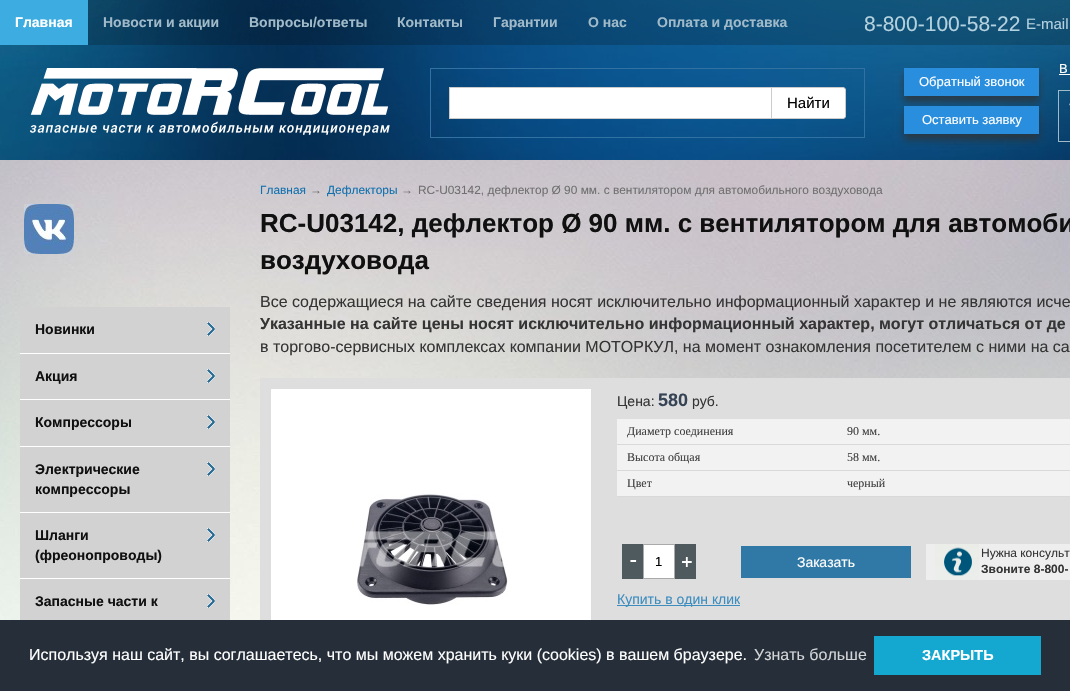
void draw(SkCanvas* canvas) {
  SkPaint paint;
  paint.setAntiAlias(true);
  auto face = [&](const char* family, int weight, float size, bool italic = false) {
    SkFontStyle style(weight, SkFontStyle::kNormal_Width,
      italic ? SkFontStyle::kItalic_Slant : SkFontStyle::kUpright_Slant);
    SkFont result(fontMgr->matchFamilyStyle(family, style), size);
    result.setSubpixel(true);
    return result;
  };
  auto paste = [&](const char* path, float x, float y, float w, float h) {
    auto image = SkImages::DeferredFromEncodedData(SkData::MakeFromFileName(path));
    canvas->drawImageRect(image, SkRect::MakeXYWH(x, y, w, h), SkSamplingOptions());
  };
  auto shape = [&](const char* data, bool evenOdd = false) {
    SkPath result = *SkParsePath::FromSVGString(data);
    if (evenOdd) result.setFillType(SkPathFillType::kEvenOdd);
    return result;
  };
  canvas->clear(0xffffffff);
  paste("img/1.png", 0, 160, 1070, 460);
  paste("img/2.png", 88, 0, 982, 45);
  paint.setColor(0xff3dade1);
  canvas->drawRect(SkRect::MakeXYWH(0, 0, 88, 45), paint);
  paste("img/3.png", 0, 45, 1070, 115);
  paint.setColor(0xffffffff);
  canvas->drawRect(SkRect::MakeXYWH(1059, 74, 11, 1), paint);
  paint.setStroke(true);
  paint.setStrokeWidth(1);
  paint.setColor(0xff3272a3);
  canvas->drawRect(SkRect::MakeXYWH(430.5f, 68.5f, 434, 69), paint);
  paint.setStroke(false);
  paint.setColor(0xffffffff);
  canvas->drawRect(SkRect::MakeXYWH(449.5f, 87.5f, 322, 31), paint);
  paint.setStroke(true);
  paint.setColor(0xffcbcbcb);
  canvas->drawRect(SkRect::MakeXYWH(449.5f, 87.5f, 322, 31), paint);
  paint.setStroke(false);
  paint.setColor(0xffffffff);
  canvas->drawPath(shape("M771.5 87.5H843C844.5 87.5 845.5 88.5 845.5 90V116C845.5 117.5 844.5 118.5 843 118.5H771.5Z"), paint);
  paint.setStroke(true);
  paint.setColor(0xffcbcbcb);
  canvas->drawPath(shape("M771.5 87.5H843C844.5 87.5 845.5 88.5 845.5 90V116C845.5 117.5 844.5 118.5 843 118.5H771.5Z"), paint);
  paste("img/4.png", 30, 68, 360, 68);
  paint.setStroke(false);
  paint.setColor(0xbf323232);
  paint.setMaskFilter(SkMaskFilter::MakeBlur(kNormal_SkBlurStyle, 3.5f));
  canvas->drawRect(SkRect::MakeXYWH(904, 74, 135, 28), paint);
  paint.setMaskFilter(nullptr);
  paint.setColor(0xff298ede);
  canvas->drawRect(SkRect::MakeXYWH(904, 68, 135, 28), paint);
  paint.setColor(0xbf323232);
  paint.setMaskFilter(SkMaskFilter::MakeBlur(kNormal_SkBlurStyle, 3.5f));
  canvas->drawRect(SkRect::MakeXYWH(904, 112, 135, 28), paint);
  paint.setMaskFilter(nullptr);
  paint.setColor(0xff298ede);
  canvas->drawRect(SkRect::MakeXYWH(904, 106, 135, 28), paint);
  paste("img/5.png", 1069, 103, 1, 3);
  paint.setStroke(true);
  paint.setColor(0xffa1bac9);
  canvas->drawRect(SkRect::MakeXYWH(1058.5f, 90.5f, 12, 51), paint);
  paste("img/6.png", 24, 204, 50, 50);
  paint.setStroke(false);
  paint.setColor(0xffd2d2d2);
  canvas->drawRect(SkRect::MakeXYWH(20, 307, 210, 46), paint);
  paint.setColor(0xffffffff);
  canvas->drawRect(SkRect::MakeXYWH(20, 353, 210, 1), paint);
  paste("img/7.png", 207, 322, 8, 14);
  paint.setColor(0xffd2d2d2);
  canvas->drawRect(SkRect::MakeXYWH(20, 354, 210, 45), paint);
  paint.setColor(0xffffffff);
  canvas->drawRect(SkRect::MakeXYWH(20, 399, 210, 1), paint);
  paste("img/7.png", 207, 369, 8, 14);
  paint.setColor(0xffd2d2d2);
  canvas->drawRect(SkRect::MakeXYWH(20, 400, 210, 46), paint);
  paint.setColor(0xffffffff);
  canvas->drawRect(SkRect::MakeXYWH(20, 446, 210, 1), paint);
  paste("img/7.png", 207, 415, 8, 14);
  paint.setColor(0xffd2d2d2);
  canvas->drawRect(SkRect::MakeXYWH(20, 447, 210, 65), paint);
  paint.setColor(0xffffffff);
  canvas->drawRect(SkRect::MakeXYWH(20, 512, 210, 1), paint);
  paste("img/7.png", 207, 462, 8, 14);
  paint.setColor(0xffd2d2d2);
  canvas->drawRect(SkRect::MakeXYWH(20, 513, 210, 65), paint);
  paint.setColor(0xffffffff);
  canvas->drawRect(SkRect::MakeXYWH(20, 578, 210, 1), paint);
  paste("img/7.png", 207, 528, 8, 14);
  paint.setColor(0xffd2d2d2);
  canvas->drawRect(SkRect::MakeXYWH(20, 579, 210, 41), paint);
  paste("img/7.png", 207, 594, 8, 14);
  paint.setColor(0xffdedede);
  canvas->drawRect(SkRect::MakeXYWH(260, 378, 810, 242), paint);
  paint.setColor(0xffffffff);
  canvas->drawRect(SkRect::MakeXYWH(271, 389, 320, 231), paint);
  paint.setStroke(true);
  paint.setColor(0xffdddddd);
  canvas->drawRect(SkRect::MakeXYWH(270.5f, 388.5f, 321, 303), paint);
  paste("img/8.png", 357, 493, 151, 112);
  paint.setStroke(false);
  {
    const struct { float x, y, w, h; SkColor color; } items[] = {
      {617, 419, 453, 77, 0xfff2f2f2},
      {617, 444, 453, 1, 0xffd9d9d9},
      {617, 470, 453, 1, 0xffd9d9d9},
      {617, 496, 453, 1, 0xffd9d9d9},
    };
    for (auto [x, y, w, h, color] : items) {
      paint.setColor(color);
      canvas->drawRect(SkRect::MakeXYWH(x, y, w, h), paint);
    }
  }
  paste("img/9.png", 622, 544, 21, 35);
  paint.setColor(0xffffffff);
  canvas->drawRect(SkRect::MakeXYWH(643.5f, 544.5f, 31, 34), paint);
  paint.setStroke(true);
  paint.setColor(0xffaaaaaa);
  canvas->drawRect(SkRect::MakeXYWH(643.5f, 544.5f, 31, 34), paint);
  paste("img/10.png", 675, 544, 21, 35);
  paint.setStroke(false);
  paint.setColor(0xff3079a6);
  canvas->drawRect(SkRect::MakeXYWH(741, 546, 170, 32), paint);
  paint.setColor(0xffeeeeee);
  canvas->drawRect(SkRect::MakeXYWH(926, 544, 144, 36), paint);
  paste("img/11.png", 935, 544, 44, 36);
  {
    const struct { float x, y, w, h; SkColor color; } items[] = {
      {617, 605, 123, 1, 0xff3d8dbf},
      {0, 620, 1070, 71, 0xff252e39},
      {874, 636, 167, 39, 0xff14a7d0},
    };
    for (auto [x, y, w, h, color] : items) {
      paint.setColor(color);
      canvas->drawRect(SkRect::MakeXYWH(x, y, w, h), paint);
    }
  }
  auto f0 = face("Liberation Sans", 700, 14);
  paint.setColor(0xffffffff);
  canvas->drawString("Главная", 15, 27, f0, paint);
  paint.setColor(0xffa1bac9);
  {
    const struct { const char* s; float x, y; } items[] = {
      {"Новости и акции", 103, 27},
      {"Вопросы/ответы", 249, 27},
      {"Контакты", 397, 27},
      {"Гарантии", 493, 27},
      {"О нас", 588, 27},
      {"Оплата и доставка", 657, 27},
    };
    for (auto [s, x, y] : items) {
      canvas->drawString(s, x, y, f0, paint);
    }
  }
  auto f1 = face("Liberation Sans", 400, 21);
  paint.setColor(0xffb3d1de);
  canvas->drawString("8-800-100-58-22", 864, 31, f1, paint);
  auto f2 = face("Liberation Sans", 400, 15);
  canvas->drawString("E-mail", 1026, 29, f2, paint);
  auto f3 = face("Liberation Sans", 400, 13);
  paint.setColor(0xffffffff);
  canvas->drawString("В", 1059, 73, f3, paint);
  paint.setColor(0xff000000);
  canvas->drawString("Найти", 787, 108, f2, paint);
  paint.setColor(0xffffffff);
  canvas->drawString("Обратный звонок", 919, 86, f3, paint);
  canvas->drawString("Оставить заявку", 922, 124, f3, paint);
  paint.setColor(0xff101010);
  {
    const struct { const char* s; float x, y; } items[] = {
      {"Новинки", 35, 334},
      {"Акция", 35, 381},
      {"Компрессоры", 35, 427},
      {"Электрические", 35, 474},
      {"компрессоры", 35, 494},
      {"Шланги", 35, 540},
      {"(фреонопроводы)", 35, 560},
      {"Запасные части к", 35, 606},
    };
    for (auto [s, x, y] : items) {
      canvas->drawString(s, x, y, f0, paint);
    }
  }
  auto f4 = face("Liberation Sans", 400, 11.9f);
  paint.setColor(0xff1071ae);
  canvas->drawString("Главная", 260, 194, f4, paint);
  paint.setColor(0xff707070);
  canvas->drawString("→", 310, 194, f4, paint);
  paint.setColor(0xff1071ae);
  canvas->drawString("Дефлекторы", 327, 194, f4, paint);
  paint.setColor(0xff707070);
  canvas->drawString("→", 401, 194, f4, paint);
  canvas->drawString("RC-U03142, дефлектор Ø 90 мм. с вентилятором для автомобильного воздуховода", 418, 194, f4, paint);
  auto f5 = face("Liberation Sans", 700, 26);
  paint.setColor(0xff101010);
  canvas->drawString("RC-U03142, дефлектор Ø 90 мм. с вентилятором для автомоби", 260, 232, f5, paint);
  canvas->drawString("воздуховода", 260, 269, f5, paint);
  auto f6 = face("Liberation Sans", 400, 16);
  paint.setColor(0xff353535);
  canvas->drawString("Все содержащиеся на сайте сведения носят исключительно информационный характер и не являются исче", 260, 307, f6, paint);
  auto f7 = face("Liberation Sans", 700, 16);
  canvas->drawString("Указанные на сайте цены носят исключительно информационный характер, могут отличаться от де", 260, 329, f7, paint);
  canvas->drawString("в торгово-сервисных комплексах компании МОТОРКУЛ, на момент ознакомления посетителем с ними на са", 260, 352, f6, paint);
  auto f8 = face("Liberation Sans", 400, 14);
  canvas->drawString("Цена:", 617, 406, f8, paint);
  auto f9 = face("Liberation Sans", 700, 18);
  paint.setColor(0xff354355);
  canvas->drawString("580", 658, 406, f9, paint);
  paint.setColor(0xff353535);
  canvas->drawString("pуб.", 692, 406, f8, paint);
  auto f10 = face("Liberation Serif", 400, 12);
  paint.setColor(0xff404040);
  {
    const struct { const char* s; float x, y; } items[] = {
      {"Диаметр соединения", 627, 435},
      {"90 мм.", 847, 435},
      {"Высота общая", 627, 461},
      {"58 мм.", 847, 461},
      {"Цвет", 627, 487},
      {"черный", 847, 487},
    };
    for (auto [s, x, y] : items) {
      canvas->drawString(s, x, y, f10, paint);
    }
  }
  paint.setColor(0xff000000);
  canvas->drawString("1", 655, 566, f3, paint);
  paint.setColor(0xffffffff);
  canvas->drawString("Заказать", 797, 567, f8, paint);
  auto f11 = face("Liberation Sans", 400, 12);
  paint.setColor(0xff353535);
  canvas->drawString("Нужна консульт", 981, 557, f11, paint);
  auto f12 = face("Liberation Sans", 700, 12);
  canvas->drawString("Звоните 8-800-", 981, 573, f12, paint);
  paint.setColor(0xff3d8dbf);
  canvas->drawString("Купить в один клик", 617, 604, f8, paint);
  paint.setColor(0xffffffff);
  canvas->drawString("Используя наш сайт, вы соглашаетесь, что мы можем хранить куки (cookies) в вашем браузере.", 29, 660, f6, paint);
  paint.setColor(0xffd3d5d7);
  canvas->drawString("Узнать больше", 754, 660, f6, paint);
  auto f13 = face("Liberation Sans", 700, 14.5f);
  paint.setColor(0xffffffff);
  canvas->drawString("ЗАКРЫТЬ", 922, 660, f13, paint);
}
